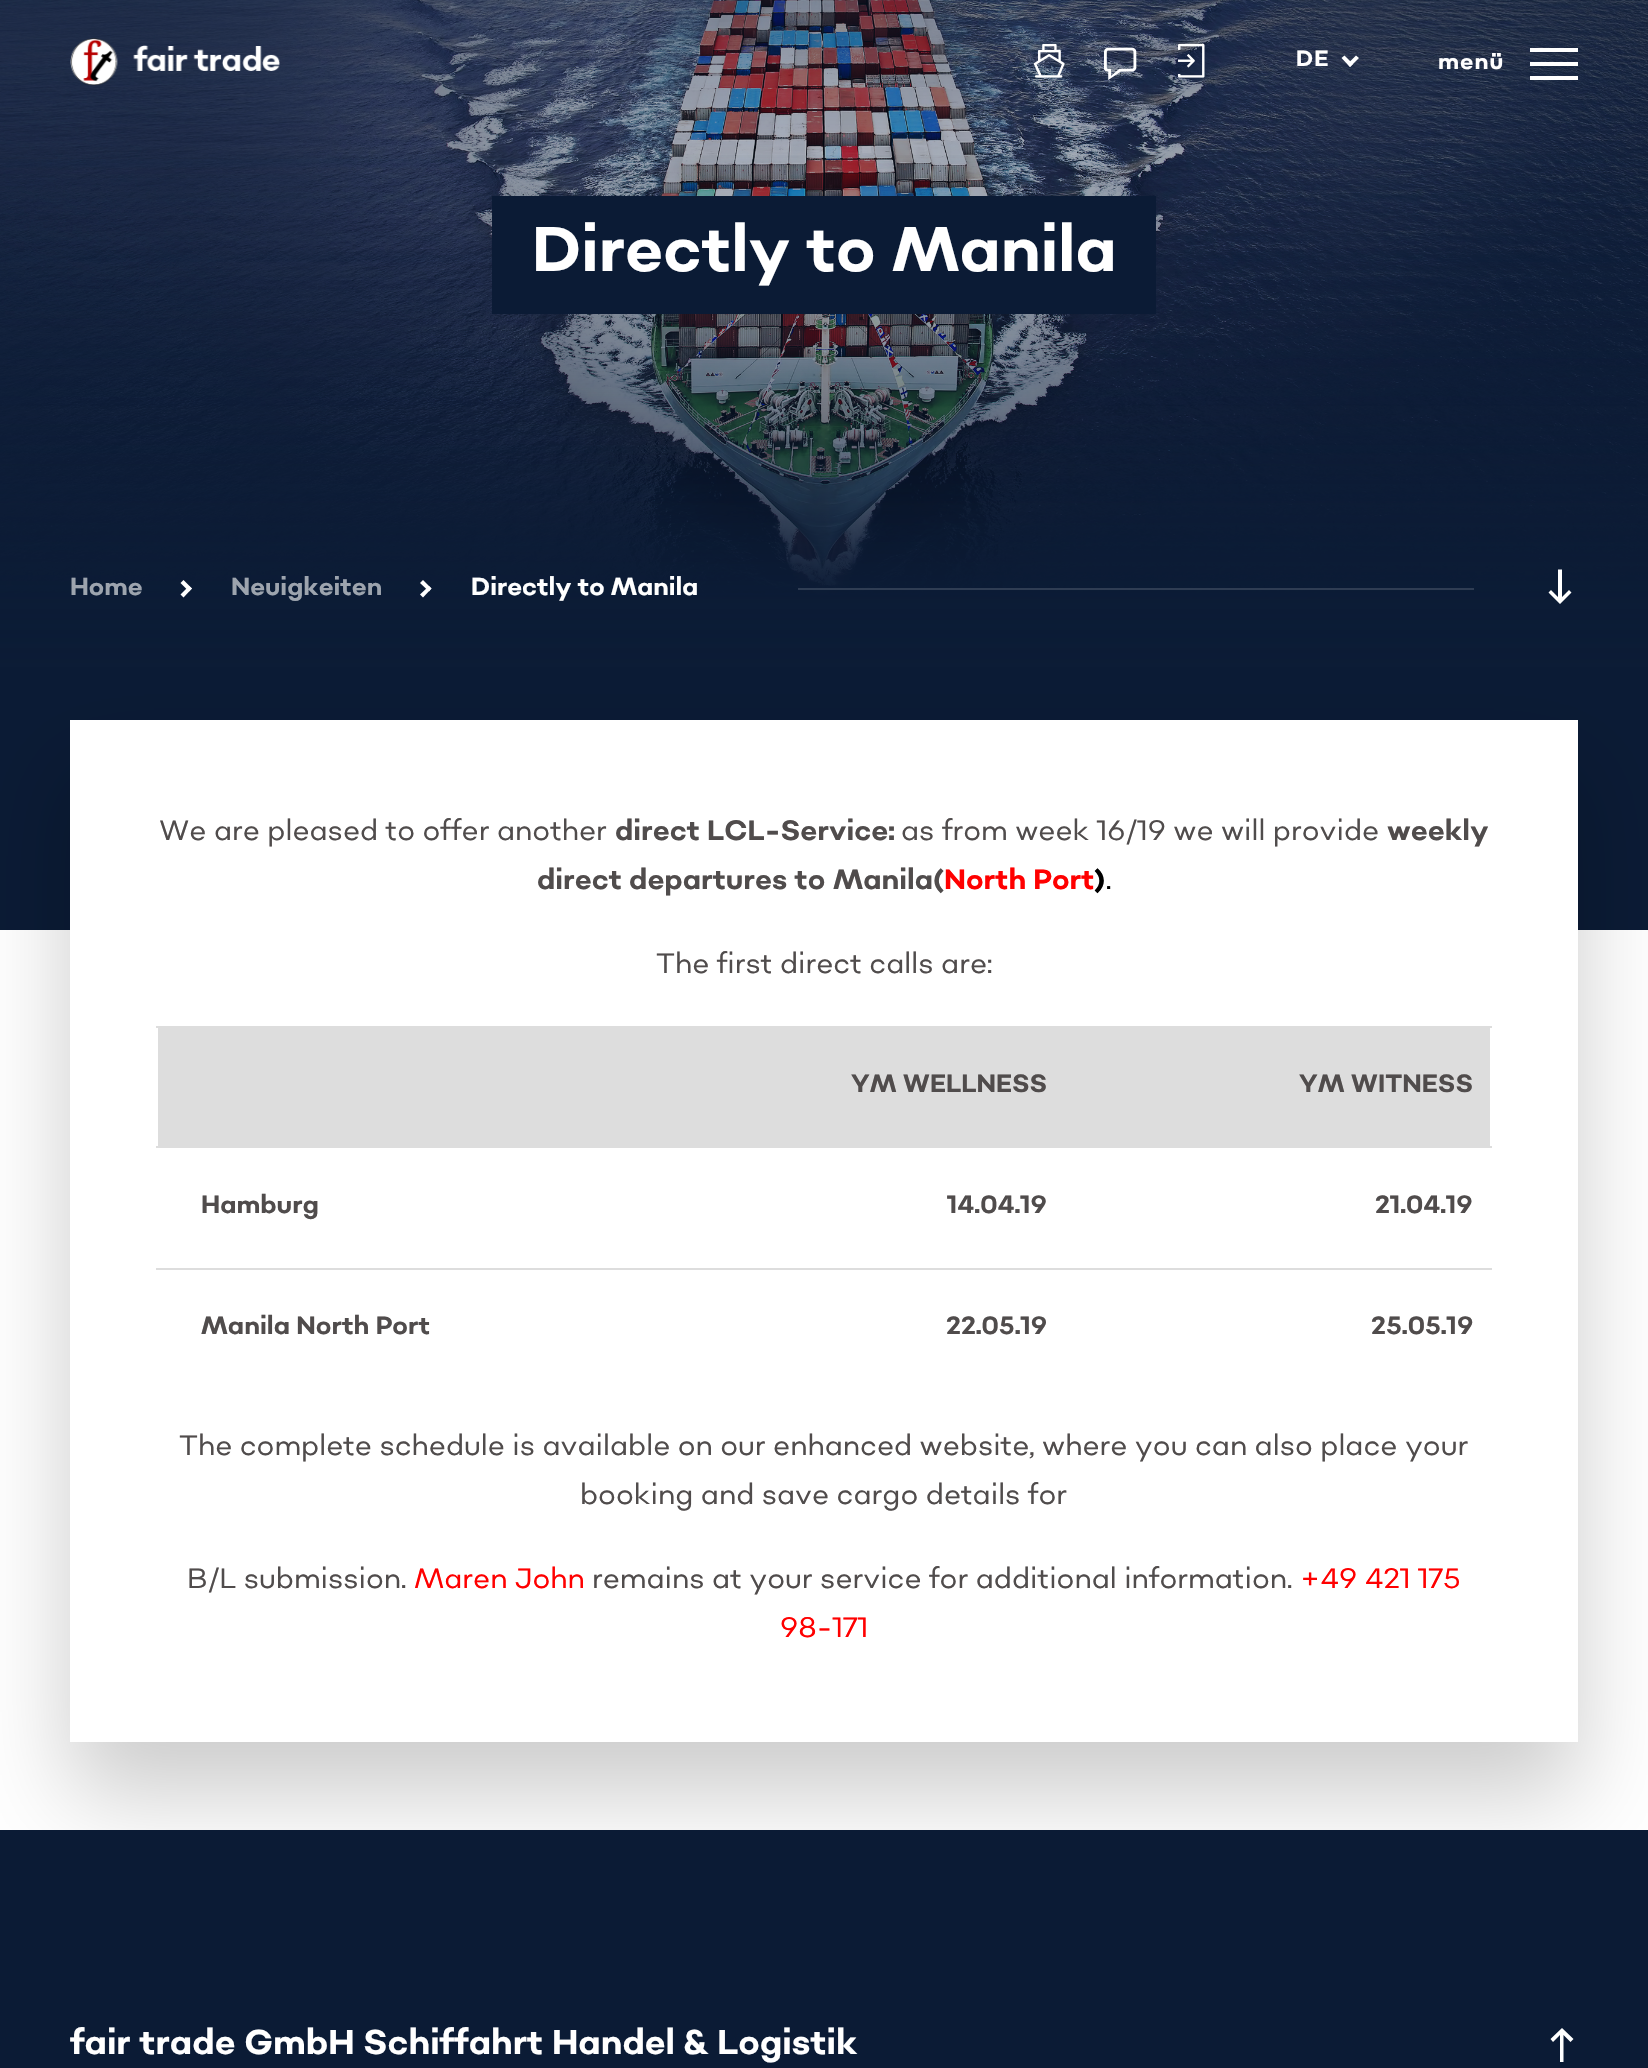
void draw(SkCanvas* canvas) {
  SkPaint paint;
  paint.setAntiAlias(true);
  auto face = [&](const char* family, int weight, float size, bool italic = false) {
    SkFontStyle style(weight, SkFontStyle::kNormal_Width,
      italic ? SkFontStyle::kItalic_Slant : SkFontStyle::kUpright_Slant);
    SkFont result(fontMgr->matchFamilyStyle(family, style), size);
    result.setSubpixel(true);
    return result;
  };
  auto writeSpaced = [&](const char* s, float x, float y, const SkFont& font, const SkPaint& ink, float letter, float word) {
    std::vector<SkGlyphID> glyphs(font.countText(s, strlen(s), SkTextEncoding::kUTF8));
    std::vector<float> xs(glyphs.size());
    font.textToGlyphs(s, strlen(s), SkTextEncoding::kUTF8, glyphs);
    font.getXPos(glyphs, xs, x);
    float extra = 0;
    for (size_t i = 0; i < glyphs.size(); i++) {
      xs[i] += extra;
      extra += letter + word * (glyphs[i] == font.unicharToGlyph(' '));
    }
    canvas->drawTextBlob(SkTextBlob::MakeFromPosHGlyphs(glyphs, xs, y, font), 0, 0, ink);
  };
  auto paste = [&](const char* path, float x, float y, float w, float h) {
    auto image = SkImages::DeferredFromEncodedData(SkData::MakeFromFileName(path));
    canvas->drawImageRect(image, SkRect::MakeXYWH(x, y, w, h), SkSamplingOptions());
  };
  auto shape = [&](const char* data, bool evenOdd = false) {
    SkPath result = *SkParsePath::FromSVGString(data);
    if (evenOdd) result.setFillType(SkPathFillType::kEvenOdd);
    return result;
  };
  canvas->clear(0xffffffff);
  paste("img/5.png", 0, 0, 1648, 600);
  paste("img/1.png", 70, 38, 210, 48);
  paste("img/2.png", 1033, 43, 32, 35);
  paste("img/3.png", 1104, 47, 33, 33);
  paste("img/4.png", 1178, 43, 27, 35);
  paint.setColor(0xffffffff);
  canvas->drawPath(shape("M1359 58L1350 67L1347.5 64L1356 55.5Z"), paint);
  canvas->drawPath(shape("M1353 64L1350 67L1341.5 58L1344.5 55.5Z"), paint);
  {
    const struct { float x, y, w, h; SkColor color; } items[] = {
      {1530, 48, 48, 4, 0xffffffff},
      {1530, 62, 48, 4, 0xffffffff},
      {1530, 76, 48, 4, 0xffffffff},
      {0, 600, 1648, 65, 0xff0b1b35},
    };
    for (auto [x, y, w, h, color] : items) {
      paint.setColor(color);
      canvas->drawRect(SkRect::MakeXYWH(x, y, w, h), paint);
    }
  }
  {
    const SkColor colors[] = {0xff0b1b35, 0x000b1b35};
    const float stops[] = {0, 1};
    const SkPoint ends[] = {{824, 668}, {824, 144}};
    paint.setShader(SkGradientShader::MakeLinear(ends, colors, stops, 2, SkTileMode::kClamp));
    paint.setAlpha(255);
  }
  canvas->drawRect(SkRect::MakeXYWH(0, 155, 1648, 513), paint);
  paint.setShader(nullptr);
  paint.setColor(0xff0b1b35);
  canvas->drawRect(SkRect::MakeXYWH(492, 196, 664, 118), paint);
  paint.setColor(0xffffffff);
  canvas->drawPath(shape("M183.5 580L192 588.5L189 591.5L180.5 583Z"), paint);
  canvas->drawPath(shape("M189 586L192 588.5L183.5 597.5L180.5 594.5Z"), paint);
  canvas->drawPath(shape("M423 580L431.5 588.5L429 591.5L420 583Z"), paint);
  canvas->drawPath(shape("M429 586L431.5 588.5L423 597.5L420 594.5Z"), paint);
  paint.setColor(0xff2f3d53);
  canvas->drawRect(SkRect::MakeXYWH(798, 588, 676, 2), paint);
  paint.setColor(0xffffffff);
  canvas->drawPath(shape("M1558 569.5H1562V597L1569 590L1571.5 592.5L1560 604L1548.5 592.5L1551 590L1558 597Z"), paint);
  paint.setColor(0xff0b1b35);
  canvas->drawRect(SkRect::MakeXYWH(0, 668, 1648, 262), paint);
  paint.setColor(0x33000000);
  paint.setMaskFilter(SkMaskFilter::MakeBlur(kNormal_SkBlurStyle, 44));
  canvas->drawRect(SkRect::MakeXYWH(70, 772, 1508, 1022), paint);
  paint.setMaskFilter(nullptr);
  {
    const struct { float x, y, w, h; SkColor color; } items[] = {
      {70, 720, 1508, 1022, 0xffffffff},
      {156, 1026, 1336, 2, 0xffdddddd},
      {158, 1028, 1332, 118, 0xffdddddd},
      {156, 1146, 1336, 2, 0xffdddddd},
      {156, 1268, 1336, 2, 0xffdddddd},
      {0, 1830, 1648, 238, 0xff0b1b35},
    };
    for (auto [x, y, w, h, color] : items) {
      paint.setColor(color);
      canvas->drawRect(SkRect::MakeXYWH(x, y, w, h), paint);
    }
  }
  paint.setColor(0xffffffff);
  canvas->drawPath(shape("M1563.5 2062H1560V2035L1553 2042L1550.5 2039L1562 2028L1573.5 2039L1570.5 2042L1563.5 2035Z"), paint);
  auto f0 = face("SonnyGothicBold", 400, 22);
  writeSpaced("DE", 1296, 66, f0, paint, 1, 0);
  writeSpaced("menü", 1438, 69, f0, paint, 1, 0);
  auto f1 = face("SonnyGothicBold", 400, 63);
  canvas->drawString("Directly to Manila", 532, 271, f1, paint);
  auto f2 = face("SonnyGothicBold", 400, 24.5f);
  paint.setColor(0xff9da4ae);
  canvas->drawString("Home", 70, 595, f2, paint);
  canvas->drawString("Neuigkeiten", 231, 595, f2, paint);
  paint.setColor(0xffffffff);
  canvas->drawString("Directly to Manila", 471, 595, f2, paint);
  auto f3 = face("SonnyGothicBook", 400, 28);
  paint.setColor(0xff504c4c);
  canvas->drawString("We are pleased to offer another", 159, 840, f3, paint);
  auto f4 = face("SonnyGothicBold", 400, 28);
  canvas->drawString("direct LCL-Service:", 615, 840, f4, paint);
  canvas->drawString("as from week 16/19 we will provide", 901, 840, f3, paint);
  {
    const struct { const char* s; float x, y; } items[] = {
      {"weekly", 1387, 840},
      {"direct departures to", 537, 889},
      {"Manila(", 833, 889},
    };
    for (auto [s, x, y] : items) {
      canvas->drawString(s, x, y, f4, paint);
    }
  }
  paint.setColor(0xffff0000);
  canvas->drawString("North Port", 944, 889, f4, paint);
  paint.setColor(0xff000000);
  canvas->drawString(")", 1094, 889, f4, paint);
  canvas->drawString(".", 1106, 889, f3, paint);
  paint.setColor(0xff504c4c);
  canvas->drawString("The first direct calls are:", 656, 973, f3, paint);
  auto f5 = face("SonnyGothicBold", 400, 24.9f);
  {
    const struct { const char* s; float x, y; } items[] = {
      {"YM WELLNESS", 851, 1092},
      {"YM WITNESS", 1299, 1092},
      {"Hamburg", 201, 1213},
      {"14.04.19", 947, 1213},
      {"21.04.19", 1375, 1213},
      {"Manila North Port", 201, 1334},
      {"22.05.19", 946, 1334},
      {"25.05.19", 1371, 1334},
    };
    for (auto [s, x, y] : items) {
      canvas->drawString(s, x, y, f5, paint);
    }
  }
  {
    const struct { const char* s; float x, y; } items[] = {
      {"The complete schedule is available on our enhanced website, where you can also place your", 179, 1455},
      {"booking and save cargo details for", 580, 1504},
      {"B/L submission.", 187, 1588},
    };
    for (auto [s, x, y] : items) {
      canvas->drawString(s, x, y, f3, paint);
    }
  }
  paint.setColor(0xffff0000);
  canvas->drawString("Maren John", 414, 1588, f3, paint);
  paint.setColor(0xff504c4c);
  canvas->drawString("remains at your service for additional information.", 592, 1588, f3, paint);
  paint.setColor(0xffff0000);
  canvas->drawString("+49 421 175", 1300, 1588, f3, paint);
  canvas->drawString("98-171", 780, 1637, f3, paint);
  auto f6 = face("SonnyGothicBold", 400, 34.25f);
  paint.setColor(0xffffffff);
  canvas->drawString("fair trade GmbH Schiffahrt Handel & Logistik", 70, 2054, f6, paint);
}
